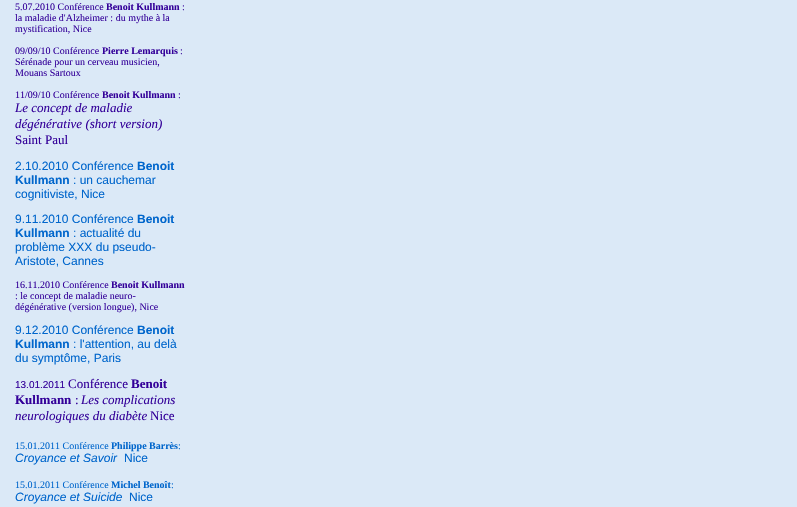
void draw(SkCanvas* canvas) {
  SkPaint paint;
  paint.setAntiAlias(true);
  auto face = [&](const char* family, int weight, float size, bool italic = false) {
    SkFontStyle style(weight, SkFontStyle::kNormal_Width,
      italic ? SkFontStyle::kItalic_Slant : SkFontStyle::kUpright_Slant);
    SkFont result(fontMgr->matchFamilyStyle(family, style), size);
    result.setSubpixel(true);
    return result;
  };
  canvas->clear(0xffdbe9f7);
  auto f0 = face("Liberation Serif", 400, 10);
  paint.setColor(0xff330099);
  canvas->drawString("5.07.2010 Conférence", 15, 10, f0, paint);
  auto f1 = face("Liberation Serif", 700, 10);
  canvas->drawString("Benoit Kullmann", 106, 10, f1, paint);
  {
    const struct { const char* s; float x, y; } items[] = {
      {":", 182, 10},
      {"la maladie d'Alzheimer : du mythe à la", 15, 21},
      {"mystification, Nice", 15, 32},
      {"09/09/10 Conférence", 15, 54},
    };
    for (auto [s, x, y] : items) {
      canvas->drawString(s, x, y, f0, paint);
    }
  }
  canvas->drawString("Pierre Lemarquis", 102, 54, f1, paint);
  {
    const struct { const char* s; float x, y; } items[] = {
      {":", 180, 54},
      {"Sérénade pour un cerveau musicien,", 15, 65},
      {"Mouans Sartoux", 15, 76},
      {"11/09/10 Conférence", 15, 98},
    };
    for (auto [s, x, y] : items) {
      canvas->drawString(s, x, y, f0, paint);
    }
  }
  canvas->drawString("Benoit Kullmann", 102, 98, f1, paint);
  canvas->drawString(":", 178, 98, f0, paint);
  auto f2 = face("Liberation Serif", 400, 13, true);
  canvas->drawString("Le concept de maladie", 15, 112, f2, paint);
  canvas->drawString("dégénérative (short version)", 15, 128, f2, paint);
  auto f3 = face("Liberation Serif", 400, 13);
  canvas->drawString("Saint Paul", 15, 144, f3, paint);
  auto f4 = face("Liberation Sans", 400, 12);
  paint.setColor(0xff0066cc);
  canvas->drawString("2.10.2010 Conférence", 15, 170, f4, paint);
  auto f5 = face("Liberation Sans", 700, 12);
  canvas->drawString("Benoit", 137, 170, f5, paint);
  canvas->drawString("Kullmann", 15, 184, f5, paint);
  {
    const struct { const char* s; float x, y; } items[] = {
      {": un cauchemar", 73, 184},
      {"cognitiviste, Nice", 15, 198},
      {"9.11.2010 Conférence", 15, 223},
    };
    for (auto [s, x, y] : items) {
      canvas->drawString(s, x, y, f4, paint);
    }
  }
  canvas->drawString("Benoit", 137, 223, f5, paint);
  canvas->drawString("Kullmann", 15, 237, f5, paint);
  {
    const struct { const char* s; float x, y; } items[] = {
      {": actualité du", 73, 237},
      {"problème XXX du pseudo-", 15, 251},
      {"Aristote, Cannes", 15, 265},
    };
    for (auto [s, x, y] : items) {
      canvas->drawString(s, x, y, f4, paint);
    }
  }
  paint.setColor(0xff330099);
  canvas->drawString("16.11.2010 Conférence", 15, 288, f0, paint);
  canvas->drawString("Benoit Kullmann", 111, 288, f1, paint);
  canvas->drawString(": le concept de maladie neuro-", 15, 299, f0, paint);
  canvas->drawString("dégénérative (version longue), Nice", 15, 310, f0, paint);
  paint.setColor(0xff0066cc);
  canvas->drawString("9.12.2010 Conférence", 15, 334, f4, paint);
  canvas->drawString("Benoit", 137, 334, f5, paint);
  canvas->drawString("Kullmann", 15, 348, f5, paint);
  canvas->drawString(": l'attention, au delà", 73, 348, f4, paint);
  canvas->drawString("du symptôme, Paris", 15, 362, f4, paint);
  auto f6 = face("Liberation Sans", 400, 10);
  paint.setColor(0xff330099);
  canvas->drawString("13.01.2011", 15, 388, f6, paint);
  canvas->drawString("Conférence", 68, 388, f3, paint);
  auto f7 = face("Liberation Serif", 700, 13);
  canvas->drawString("Benoit", 131, 388, f7, paint);
  canvas->drawString("Kullmann", 15, 404, f7, paint);
  canvas->drawString(":", 75, 404, f3, paint);
  canvas->drawString("Les complications", 81, 404, f2, paint);
  canvas->drawString("neurologiques du diabète", 15, 420, f2, paint);
  canvas->drawString("Nice", 150, 420, f3, paint);
  paint.setColor(0xff0066cc);
  canvas->drawString("15.01.2011 Conférence", 15, 449, f0, paint);
  canvas->drawString("Philippe Barrès", 111, 449, f1, paint);
  canvas->drawString(":", 178, 449, f0, paint);
  auto f8 = face("Liberation Sans", 400, 12, true);
  canvas->drawString("Croyance et Savoir", 15, 462, f8, paint);
  canvas->drawString("Nice", 124, 462, f4, paint);
  canvas->drawString("15.01.2011 Conférence", 15, 488, f0, paint);
  canvas->drawString("Michel Benoît", 111, 488, f1, paint);
  canvas->drawString(":", 171, 488, f0, paint);
  canvas->drawString("Croyance et Suicide", 15, 501, f8, paint);
  canvas->drawString("Nice", 129, 501, f4, paint);
}
